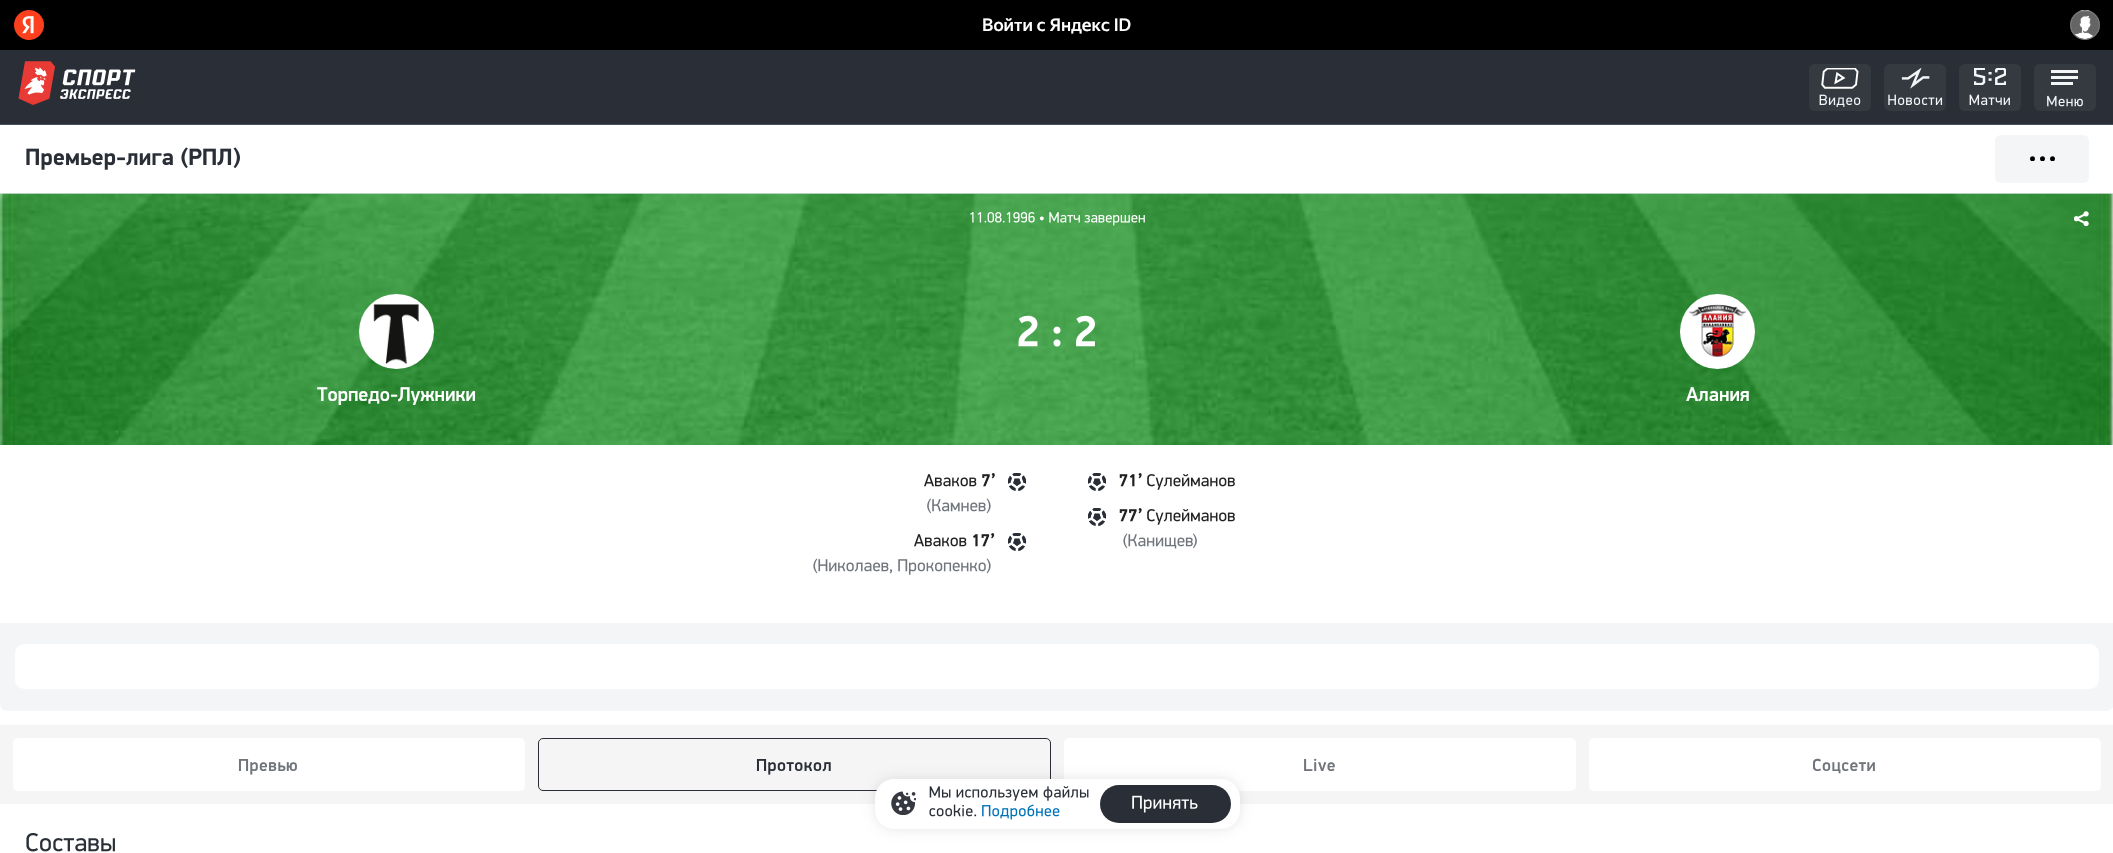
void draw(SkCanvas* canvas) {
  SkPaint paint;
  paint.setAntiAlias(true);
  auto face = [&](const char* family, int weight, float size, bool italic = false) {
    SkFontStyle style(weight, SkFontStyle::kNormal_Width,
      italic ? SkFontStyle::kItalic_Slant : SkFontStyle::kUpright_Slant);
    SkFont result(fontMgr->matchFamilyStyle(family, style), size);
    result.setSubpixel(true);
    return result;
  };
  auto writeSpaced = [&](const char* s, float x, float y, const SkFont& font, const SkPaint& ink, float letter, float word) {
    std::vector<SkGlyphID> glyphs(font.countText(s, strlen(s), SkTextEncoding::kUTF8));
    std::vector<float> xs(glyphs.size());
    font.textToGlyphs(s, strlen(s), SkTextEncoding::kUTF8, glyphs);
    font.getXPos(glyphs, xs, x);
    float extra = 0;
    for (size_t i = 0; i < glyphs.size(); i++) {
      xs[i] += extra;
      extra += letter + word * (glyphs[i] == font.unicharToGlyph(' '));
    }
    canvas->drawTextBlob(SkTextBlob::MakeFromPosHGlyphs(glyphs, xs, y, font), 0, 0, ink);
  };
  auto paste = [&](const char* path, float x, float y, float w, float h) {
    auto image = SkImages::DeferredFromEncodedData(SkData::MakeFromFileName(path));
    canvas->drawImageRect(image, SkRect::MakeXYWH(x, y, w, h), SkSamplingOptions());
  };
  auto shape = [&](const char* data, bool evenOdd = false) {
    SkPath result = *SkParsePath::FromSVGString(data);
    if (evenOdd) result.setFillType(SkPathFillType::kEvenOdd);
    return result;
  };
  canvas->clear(0xffffffff);
  paint.setColor(0xff000000);
  canvas->drawRect(SkRect::MakeXYWH(0, 0, 2113, 50), paint);
  paste("img/1.png", 14, 10, 30, 30);
  paint.setColor(0xff767676);
  canvas->drawCircle(2085, 25, 15, paint);
  paste("img/2.png", 2070, 10, 30, 30);
  paint.setStroke(true);
  paint.setStrokeWidth(1);
  canvas->drawCircle(2085, 25, 14.5f, paint);
  paint.setStroke(false);
  paint.setColor(0xff2a2f37);
  canvas->drawRect(SkRect::MakeXYWH(0, 50, 2113, 74), paint);
  paint.setColor(0xff4a5059);
  canvas->drawRect(SkRect::MakeXYWH(0, 124, 2113, 1), paint);
  paste("img/3.png", 18, 61, 118, 44);
  paint.setColor(0xff353a41);
  canvas->drawRoundRect(SkRect::MakeXYWH(1809, 64, 62, 47), 6, 6, paint);
  paste("img/4.png", 1821, 68, 38, 21);
  paste("img/5.png", 1819, 94, 42, 13);
  canvas->drawRoundRect(SkRect::MakeXYWH(1884, 64, 62, 47), 6, 6, paint);
  paste("img/6.png", 1901, 68, 29, 21);
  paste("img/7.png", 1888, 94, 55, 12);
  canvas->drawRoundRect(SkRect::MakeXYWH(1959, 64, 62, 47), 6, 6, paint);
  paste("img/8.png", 1974, 68, 32, 17);
  paste("img/9.png", 1969, 94, 41, 12);
  canvas->drawRoundRect(SkRect::MakeXYWH(2034, 64, 62, 47), 6, 6, paint);
  {
    const struct { float x, y, w, h; SkColor color; } items[] = {
      {2051, 70, 27, 3, 0xfff3f5f7},
      {2051, 76, 27, 3, 0xfff3f5f7},
      {2051, 82, 22, 3, 0xfff3f5f7},
    };
    for (auto [x, y, w, h, color] : items) {
      paint.setColor(color);
      canvas->drawRect(SkRect::MakeXYWH(x, y, w, h), paint);
    }
  }
  paste("img/10.png", 2047, 95, 36, 12);
  paint.setColor(0xffdee3e8);
  canvas->drawRect(SkRect::MakeXYWH(0, 193, 2113, 1), paint);
  paste("img/11.png", 26, 147, 214, 23);
  paint.setColor(0xfff3f5f7);
  canvas->drawRoundRect(SkRect::MakeXYWH(1995, 135, 94, 48), 6, 6, paint);
  canvas->save();
  canvas->clipRect(SkRect::MakeXYWH(2030, 156, 25, 5));
  paint.setColor(0xff000000);
  canvas->drawCircle(2032.5f, 158.8f, 2.5f, paint);
  canvas->drawCircle(2042.5f, 158.8f, 2.5f, paint);
  canvas->drawCircle(2052.5f, 158.8f, 2.5f, paint);
  canvas->restore();
  paste("img/12.png", 0, 193, 2113, 252);
  paste("img/13.png", 970, 212, 65, 11);
  paste("img/14.png", 1039, 212, 106, 14);
  paste("img/15.png", 2074, 211, 15, 15);
  paint.setColor(0xffffffff);
  canvas->drawCircle(396.5f, 331.5f, 37.5f, paint);
  paste("img/16.png", 373, 304, 46, 60);
  paste("img/17.png", 1018, 315, 20, 32);
  paste("img/18.png", 1053, 326, 8, 21);
  paste("img/19.png", 1076, 315, 19, 32);
  canvas->drawCircle(1717.5f, 331.5f, 37.5f, paint);
  paste("img/20.png", 1688, 304, 59, 54);
  paste("img/21.png", 924, 474, 53, 13);
  paste("img/22.png", 982, 473, 13, 14);
  paste("img/23.png", 1008, 473, 19, 18);
  paste("img/24.png", 927, 498, 4, 16);
  paste("img/25.png", 932, 499, 54, 13);
  paste("img/26.png", 986, 498, 5, 16);
  paste("img/21.png", 914, 534, 53, 13);
  paste("img/27.png", 973, 533, 22, 14);
  paste("img/23.png", 1008, 533, 19, 18);
  paste("img/28.png", 813, 558, 5, 16);
  paste("img/29.png", 818, 559, 71, 13);
  paste("img/30.png", 889, 559, 97, 16);
  paste("img/26.png", 986, 558, 5, 16);
  paste("img/31.png", 1088, 473, 18, 18);
  paste("img/32.png", 1119, 473, 23, 14);
  paste("img/33.png", 1147, 474, 88, 16);
  paste("img/31.png", 1088, 508, 18, 18);
  paste("img/34.png", 1119, 508, 23, 14);
  paste("img/33.png", 1147, 509, 88, 16);
  paste("img/28.png", 1123, 533, 5, 16);
  paste("img/35.png", 1128, 534, 65, 15);
  paste("img/36.png", 1193, 533, 4, 16);
  paint.setColor(0xfff3f5f7);
  canvas->drawPath(shape("M0 623H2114V703C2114 707.5 2110.5 711 2106 711H8C3.5 711 0 707.5 0 703Z"), paint);
  paint.setColor(0xffffffff);
  canvas->drawRoundRect(SkRect::MakeXYWH(15, 644, 2084, 45), 9, 9, paint);
  paint.setColor(0xfff5f5f5);
  canvas->drawRect(SkRect::MakeXYWH(0, 725, 2113, 79), paint);
  paint.setColor(0xffffffff);
  canvas->drawRoundRect(SkRect::MakeXYWH(13, 738, 512, 53), 5, 5, paint);
  paint.setStroke(true);
  paint.setColor(0xff2a2f37);
  canvas->drawRoundRect(SkRect::MakeXYWH(538.5f, 738.5f, 512, 52), 4.5f, 4.5f, paint);
  paint.setStroke(false);
  paint.setColor(0xffffffff);
  canvas->drawRoundRect(SkRect::MakeXYWH(1064, 738, 512, 53), 5, 5, paint);
  canvas->drawRoundRect(SkRect::MakeXYWH(1589, 738, 512, 53), 5, 5, paint);
  paste("img/37.png", 26, 833, 89, 19);
  paint.setColor(0x1a000000);
  paint.setMaskFilter(SkMaskFilter::MakeBlur(kNormal_SkBlurStyle, 6));
  canvas->drawRoundRect(SkRect::MakeXYWH(875, 779, 365, 50), 19, 19, paint);
  paint.setMaskFilter(nullptr);
  paint.setColor(0xffffffff);
  canvas->drawRoundRect(SkRect::MakeXYWH(875, 779, 365, 50), 19, 19, paint);
  paste("img/38.png", 891, 791, 25, 24);
  paste("img/39.png", 929, 786, 160, 15);
  paste("img/40.png", 929, 804, 48, 13);
  paste("img/41.png", 982, 804, 78, 16);
  paint.setColor(0xff2a2f37);
  canvas->drawRoundRect(SkRect::MakeXYWH(1100, 785, 131, 38), 19, 19, paint);
  paste("img/42.png", 1132, 795, 66, 18);
  auto f0 = face("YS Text", 500, 17.5f);
  paint.setColor(0xffffffff);
  canvas->drawString("Войти с Яндекс ID", 982, 31, f0, paint);
  auto f1 = face("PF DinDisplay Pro", 500, 20);
  canvas->drawString("Торпедо-Лужники", 317, 401, f1, paint);
  canvas->drawString("Алания", 1686, 401, f1, paint);
  auto f2 = face("PF DinDisplay Pro", 500, 17.5f);
  paint.setColor(0xff70757b);
  writeSpaced("Превью", 238, 771, f2, paint, 0.5f, 0);
  paint.setColor(0xff2a2f37);
  writeSpaced("Протокол", 756, 771, f2, paint, 0.5f, 0);
  paint.setColor(0xff70757b);
  writeSpaced("Live", 1303, 771, f2, paint, 0.5f, 0);
  writeSpaced("Соцсети", 1812, 771, f2, paint, 0.5f, 0);
}
